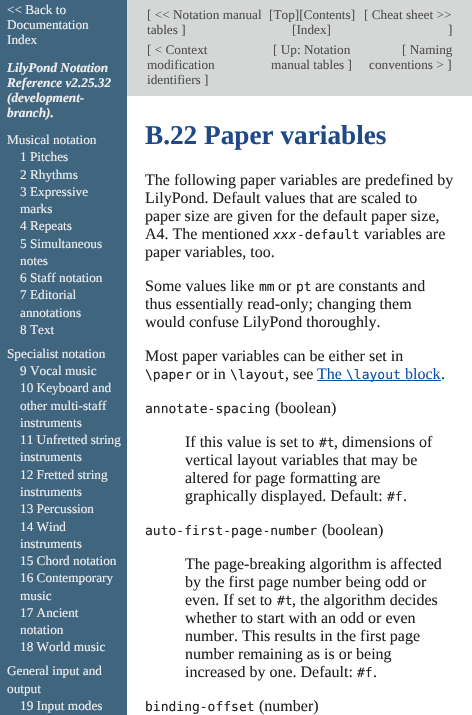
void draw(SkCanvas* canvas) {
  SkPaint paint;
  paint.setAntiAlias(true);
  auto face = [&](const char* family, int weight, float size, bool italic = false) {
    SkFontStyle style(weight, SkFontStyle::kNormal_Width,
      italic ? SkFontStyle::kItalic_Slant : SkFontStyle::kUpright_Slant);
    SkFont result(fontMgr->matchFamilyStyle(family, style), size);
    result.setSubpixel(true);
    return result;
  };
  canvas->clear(0xffffffff);
  {
    const struct { float x, y, w, h; SkColor color; } items[] = {
      {0, 0, 127, 715, 0xff40657f},
      {127, 0, 345, 96, 0xffd5d7d6},
      {317, 380, 124, 1, 0xff0c51ab},
    };
    for (auto [x, y, w, h, color] : items) {
      paint.setColor(color);
      canvas->drawRect(SkRect::MakeXYWH(x, y, w, h), paint);
    }
  }
  auto f0 = face("Liberation Serif", 400, 13.25f);
  paint.setColor(0xffeeeeee);
  {
    const struct { const char* s; float x, y; } items[] = {
      {"<< Back to", 7, 14},
      {"Documentation", 7, 29},
      {"Index", 7, 44},
    };
    for (auto [s, x, y] : items) {
      canvas->drawString(s, x, y, f0, paint);
    }
  }
  auto f1 = face("Liberation Serif", 700, 13.25f, true);
  {
    const struct { const char* s; float x, y; } items[] = {
      {"LilyPond Notation", 7, 72},
      {"Reference v2.25.32", 7, 87},
      {"(development-", 7, 102},
      {"branch).", 7, 117},
    };
    for (auto [s, x, y] : items) {
      canvas->drawString(s, x, y, f1, paint);
    }
  }
  {
    const struct { const char* s; float x, y; } items[] = {
      {"Musical notation", 7, 144},
      {"1 Pitches", 20, 161},
      {"2 Rhythms", 20, 179},
      {"3 Expressive", 20, 196},
      {"marks", 20, 213},
      {"4 Repeats", 20, 230},
      {"5 Simultaneous", 20, 248},
      {"notes", 20, 265},
      {"6 Staff notation", 20, 282},
      {"7 Editorial", 20, 299},
      {"annotations", 20, 317},
      {"8 Text", 20, 334},
      {"Specialist notation", 7, 358},
      {"9 Vocal music", 20, 375},
      {"10 Keyboard and", 20, 392},
      {"other multi-staff", 20, 410},
      {"instruments", 20, 427},
      {"11 Unfretted string", 20, 444},
      {"instruments", 20, 461},
      {"12 Fretted string", 20, 479},
      {"instruments", 20, 496},
      {"13 Percussion", 20, 513},
      {"14 Wind", 20, 531},
      {"instruments", 20, 548},
      {"15 Chord notation", 20, 565},
      {"16 Contemporary", 20, 582},
      {"music", 20, 600},
      {"17 Ancient", 20, 617},
      {"notation", 20, 634},
      {"18 World music", 20, 651},
      {"General input and", 7, 675},
      {"output", 7, 693},
      {"19 Input modes", 20, 710},
    };
    for (auto [s, x, y] : items) {
      canvas->drawString(s, x, y, f0, paint);
    }
  }
  paint.setColor(0xff505050);
  {
    const struct { const char* s; float x, y; } items[] = {
      {"[ << Notation manual", 147, 19},
      {"tables ]", 147, 34},
      {"[Top][Contents]", 269, 19},
      {"[Index]", 292, 34},
      {"[ Cheat sheet >>", 364, 19},
      {"]", 448, 34},
      {"[ < Context", 147, 54},
      {"modification", 147, 69},
      {"identifiers ]", 147, 84},
      {"[ Up: Notation", 273, 54},
      {"manual tables ]", 271, 69},
      {"[ Naming", 402, 54},
      {"conventions > ]", 369, 69},
    };
    for (auto [s, x, y] : items) {
      canvas->drawString(s, x, y, f0, paint);
    }
  }
  auto f2 = face("Liberation Serif", 700, 27.25f);
  paint.setColor(0xff204a87);
  canvas->drawString("B.22 Paper variables", 145, 144, f2, paint);
  auto f3 = face("Liberation Serif", 400, 16);
  paint.setColor(0xff222222);
  {
    const struct { const char* s; float x, y; } items[] = {
      {"The following paper variables are predefined by", 145, 185},
      {"LilyPond. Default values that are scaled to", 145, 203},
      {"paper size are given for the default paper size,", 145, 221},
      {"A4. The mentioned", 145, 239},
    };
    for (auto [s, x, y] : items) {
      canvas->drawString(s, x, y, f3, paint);
    }
  }
  auto f4 = face("DejaVu Sans Mono", 400, 13, true);
  canvas->drawString("xxx", 273, 239, f4, paint);
  auto f5 = face("DejaVu Sans Mono", 400, 13);
  canvas->drawString("-default", 297, 239, f5, paint);
  {
    const struct { const char* s; float x, y; } items[] = {
      {"variables are", 364, 239},
      {"paper variables, too.", 145, 257},
      {"Some values like", 145, 291},
    };
    for (auto [s, x, y] : items) {
      canvas->drawString(s, x, y, f3, paint);
    }
  }
  canvas->drawString("mm", 259, 291, f5, paint);
  canvas->drawString("or", 278, 291, f3, paint);
  canvas->drawString("pt", 296, 291, f5, paint);
  {
    const struct { const char* s; float x, y; } items[] = {
      {"are constants and", 315, 291},
      {"thus essentially read-only; changing them", 145, 309},
      {"would confuse LilyPond thoroughly.", 145, 327},
      {"Most paper variables can be either set in", 145, 361},
    };
    for (auto [s, x, y] : items) {
      canvas->drawString(s, x, y, f3, paint);
    }
  }
  canvas->drawString("\\paper", 145, 379, f5, paint);
  canvas->drawString("or in", 196, 379, f3, paint);
  canvas->drawString("\\layout", 230, 379, f5, paint);
  canvas->drawString(", see", 285, 379, f3, paint);
  paint.setColor(0xff0c51ab);
  canvas->drawString("The", 317, 379, f3, paint);
  canvas->drawString("\\layout", 346, 379, f5, paint);
  canvas->drawString("block", 405, 379, f3, paint);
  paint.setColor(0xff222222);
  canvas->drawString(".", 441, 379, f3, paint);
  canvas->drawString("annotate-spacing", 145, 413, f5, paint);
  canvas->drawString("(boolean)", 275, 413, f3, paint);
  canvas->drawString("If this value is set to", 185, 447, f3, paint);
  canvas->drawString("#t", 319, 447, f5, paint);
  {
    const struct { const char* s; float x, y; } items[] = {
      {", dimensions of", 334, 447},
      {"vertical layout variables that may be", 185, 465},
      {"altered for page formatting are", 185, 483},
      {"graphically displayed. Default:", 185, 501},
    };
    for (auto [s, x, y] : items) {
      canvas->drawString(s, x, y, f3, paint);
    }
  }
  canvas->drawString("#f", 387, 501, f5, paint);
  canvas->drawString(".", 403, 501, f3, paint);
  canvas->drawString("auto-first-page-number", 145, 535, f5, paint);
  {
    const struct { const char* s; float x, y; } items[] = {
      {"(boolean)", 322, 535},
      {"The page-breaking algorithm is affected", 185, 569},
      {"by the first page number being odd or", 185, 587},
      {"even. If set to", 185, 605},
    };
    for (auto [s, x, y] : items) {
      canvas->drawString(s, x, y, f3, paint);
    }
  }
  canvas->drawString("#t", 277, 605, f5, paint);
  {
    const struct { const char* s; float x, y; } items[] = {
      {", the algorithm decides", 292, 605},
      {"whether to start with an odd or even", 185, 623},
      {"number. This results in the first page", 185, 641},
      {"number remaining as is or being", 185, 659},
      {"increased by one. Default:", 185, 677},
    };
    for (auto [s, x, y] : items) {
      canvas->drawString(s, x, y, f3, paint);
    }
  }
  canvas->drawString("#f", 357, 677, f5, paint);
  canvas->drawString(".", 373, 677, f3, paint);
  canvas->drawString("binding-offset", 145, 711, f5, paint);
  canvas->drawString("(number)", 259, 711, f3, paint);
}
